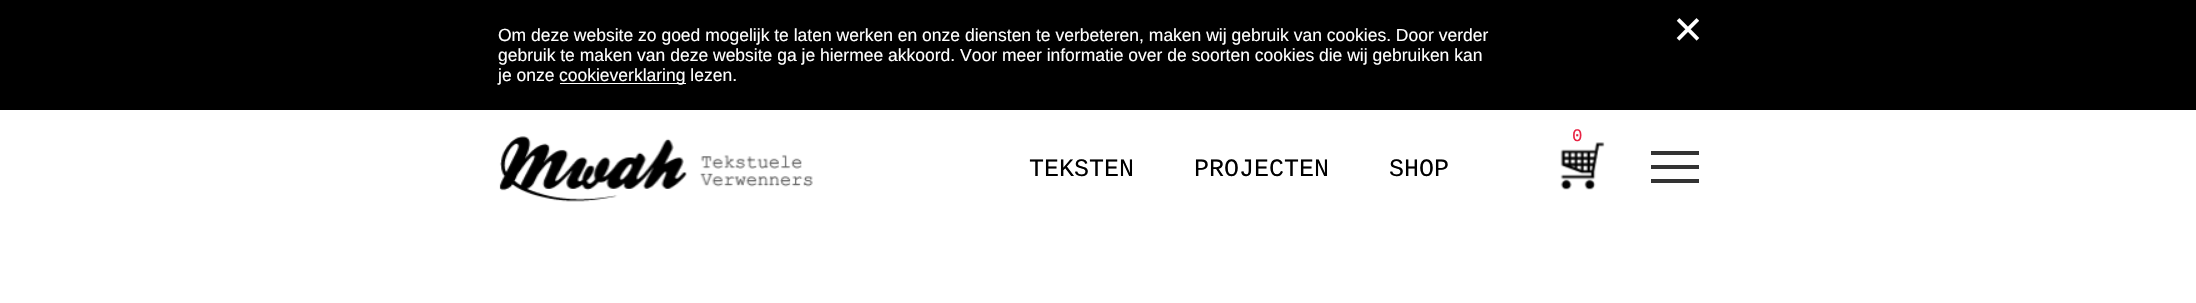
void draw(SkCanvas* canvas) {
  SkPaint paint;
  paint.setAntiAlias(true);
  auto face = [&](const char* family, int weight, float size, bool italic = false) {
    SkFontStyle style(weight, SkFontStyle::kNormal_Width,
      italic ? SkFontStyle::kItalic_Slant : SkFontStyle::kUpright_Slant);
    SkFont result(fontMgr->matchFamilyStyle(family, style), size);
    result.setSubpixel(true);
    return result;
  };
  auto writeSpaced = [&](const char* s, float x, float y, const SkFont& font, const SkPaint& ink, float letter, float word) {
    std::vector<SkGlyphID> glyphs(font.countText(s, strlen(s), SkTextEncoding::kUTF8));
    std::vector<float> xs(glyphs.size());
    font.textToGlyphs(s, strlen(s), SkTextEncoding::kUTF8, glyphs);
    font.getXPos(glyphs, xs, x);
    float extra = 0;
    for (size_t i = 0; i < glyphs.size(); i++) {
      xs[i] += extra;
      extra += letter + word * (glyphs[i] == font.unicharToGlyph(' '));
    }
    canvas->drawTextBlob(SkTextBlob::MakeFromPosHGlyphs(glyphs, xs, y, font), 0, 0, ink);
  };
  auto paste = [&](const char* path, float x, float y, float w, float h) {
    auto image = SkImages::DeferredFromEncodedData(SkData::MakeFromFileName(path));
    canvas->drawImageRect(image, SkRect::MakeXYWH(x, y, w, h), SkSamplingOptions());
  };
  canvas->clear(0xffffffff);
  paint.setColor(0xff000000);
  canvas->drawRect(SkRect::MakeXYWH(0, 0, 2196, 110), paint);
  paint.setColor(0xffffffff);
  canvas->drawRect(SkRect::MakeXYWH(560, 83, 126, 1), paint);
  paste("img/1.png", 499, 136, 314, 66);
  paste("img/2.png", 1560, 142, 45, 48);
  {
    const struct { float x, y, w, h; SkColor color; } items[] = {
      {1651, 151, 48, 4, 0xff333333},
      {1651, 165, 48, 4, 0xff333333},
      {1651, 179, 48, 4, 0xff333333},
    };
    for (auto [x, y, w, h, color] : items) {
      paint.setColor(color);
      canvas->drawRect(SkRect::MakeXYWH(x, y, w, h), paint);
    }
  }
  auto f0 = face("Liberation Sans", 400, 17.5f);
  paint.setColor(0xffffffff);
  {
    const struct { const char* s; float x, y; } items[] = {
      {"Om deze website zo goed mogelijk te laten werken en onze diensten te verbeteren, maken wij gebruik van cookies. Door verder", 498, 41},
      {"gebruik te maken van deze website ga je hiermee akkoord. Voor meer informatie over de soorten cookies die wij gebruiken kan", 498, 61},
      {"je onze", 498, 81},
      {"cookieverklaring lezen.", 559, 81},
    };
    for (auto [s, x, y] : items) {
      canvas->drawString(s, x, y, f0, paint);
    }
  }
  auto f1 = face("Liberation Mono", 400, 50);
  canvas->drawString("×", 1673, 46, f1, paint);
  auto f2 = face("Liberation Mono", 400, 17.5f);
  paint.setColor(0xffe82243);
  writeSpaced("0", 1572, 141, f2, paint, -2, 0);
  auto f3 = face("Liberation Mono", 400, 25);
  paint.setColor(0xff000000);
  {
    const struct { const char* s; float x, y; } items[] = {
      {"TEKSTEN", 1029, 176},
      {"PROJECTEN", 1194, 176},
      {"SHOP", 1389, 176},
    };
    for (auto [s, x, y] : items) {
      canvas->drawString(s, x, y, f3, paint);
    }
  }
}
